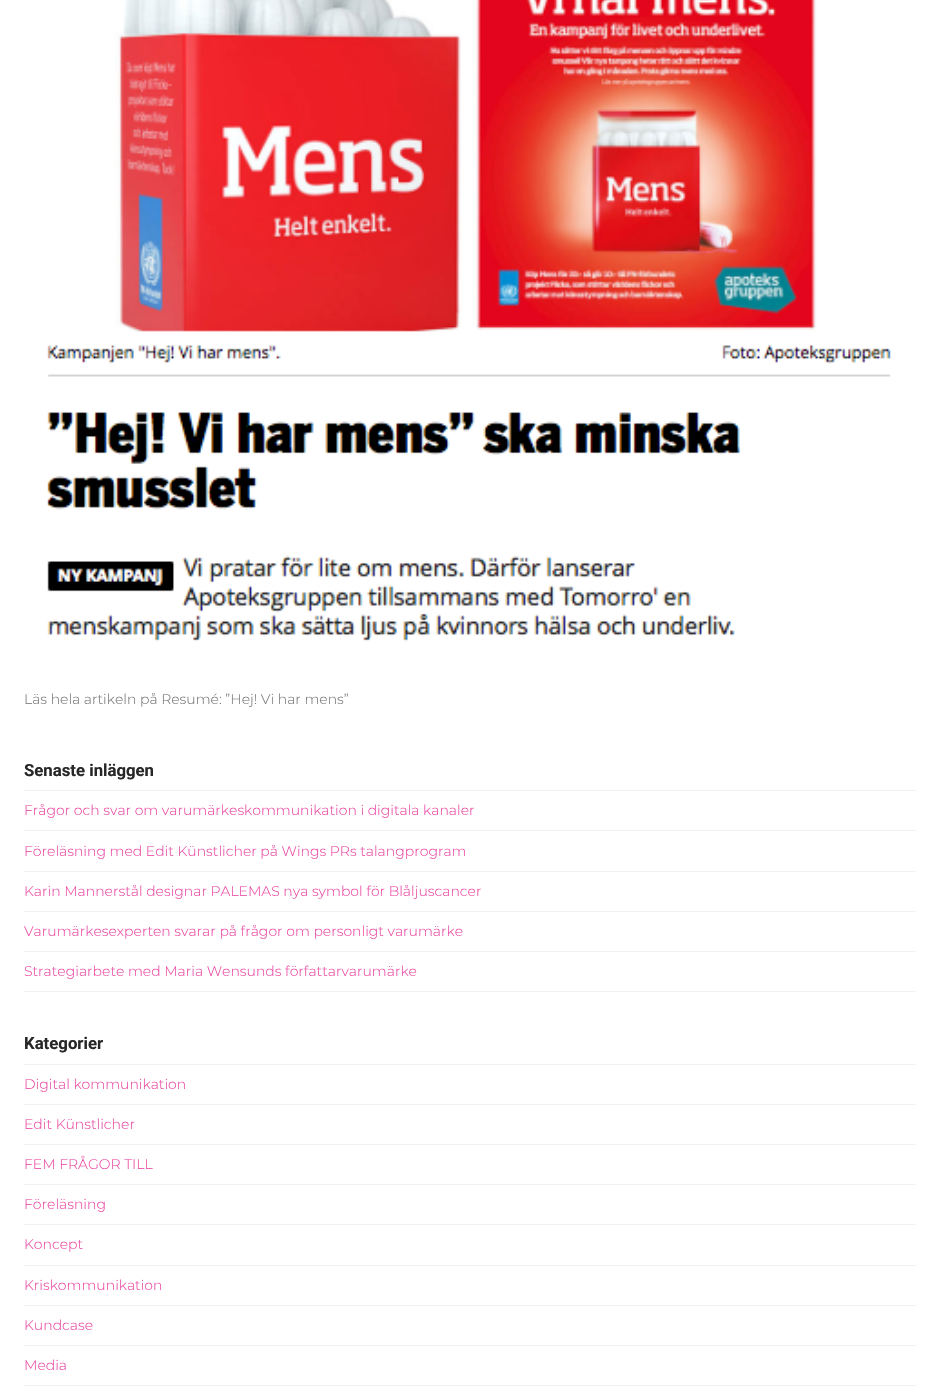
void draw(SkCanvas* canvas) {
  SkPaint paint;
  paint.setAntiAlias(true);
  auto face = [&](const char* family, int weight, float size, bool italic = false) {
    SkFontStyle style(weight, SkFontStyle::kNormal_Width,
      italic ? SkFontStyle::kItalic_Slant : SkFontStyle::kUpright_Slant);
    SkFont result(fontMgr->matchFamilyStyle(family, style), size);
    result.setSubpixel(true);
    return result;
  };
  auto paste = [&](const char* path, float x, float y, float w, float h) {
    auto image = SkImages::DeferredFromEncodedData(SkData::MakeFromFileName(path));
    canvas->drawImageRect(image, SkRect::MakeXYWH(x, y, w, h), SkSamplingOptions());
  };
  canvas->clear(0xffffffff);
  paste("img/1.png", 30, 0, 880, 656);
  {
    const struct { float x, y, w, h; SkColor color; } items[] = {
      {24, 790, 892, 1, 0xfff2f2f2},
      {24, 830, 892, 1, 0xfff2f2f2},
      {24, 871, 892, 1, 0xfff2f2f2},
      {24, 911, 892, 1, 0xfff2f2f2},
      {24, 951, 892, 1, 0xfff2f2f2},
      {24, 991, 892, 1, 0xfff2f2f2},
      {24, 1064, 892, 1, 0xfff2f2f2},
      {24, 1104, 892, 1, 0xfff2f2f2},
      {24, 1144, 892, 1, 0xfff2f2f2},
      {24, 1184, 892, 1, 0xfff2f2f2},
      {24, 1224, 892, 1, 0xfff2f2f2},
      {24, 1265, 892, 1, 0xfff2f2f2},
      {24, 1305, 892, 1, 0xfff2f2f2},
      {24, 1345, 892, 1, 0xfff2f2f2},
      {24, 1385, 892, 1, 0xfff2f2f2},
    };
    for (auto [x, y, w, h, color] : items) {
      paint.setColor(color);
      canvas->drawRect(SkRect::MakeXYWH(x, y, w, h), paint);
    }
  }
  auto f0 = face("Montserrat", 300, 14);
  paint.setColor(0xff777777);
  canvas->drawString("Läs hela artikeln på Resumé: ”Hej! Vi har mens”", 24, 704, f0, paint);
  auto f1 = face("Roboto", 700, 16.75f);
  paint.setColor(0xff272727);
  canvas->drawString("Senaste inläggen", 24, 776, f1, paint);
  paint.setColor(0xffeb47a2);
  {
    const struct { const char* s; float x, y; } items[] = {
      {"Frågor och svar om varumärkeskommunikation i digitala kanaler", 24, 815},
      {"Föreläsning med Edit Künstlicher på Wings PRs talangprogram", 24, 856},
      {"Karin Mannerstål designar PALEMAS nya symbol för Blåljuscancer", 24, 896},
      {"Varumärkesexperten svarar på frågor om personligt varumärke", 24, 936},
      {"Strategiarbete med Maria Wensunds författarvarumärke", 24, 976},
    };
    for (auto [s, x, y] : items) {
      canvas->drawString(s, x, y, f0, paint);
    }
  }
  paint.setColor(0xff272727);
  canvas->drawString("Kategorier", 24, 1049, f1, paint);
  paint.setColor(0xffeb47a2);
  {
    const struct { const char* s; float x, y; } items[] = {
      {"Digital kommunikation", 24, 1089},
      {"Edit Künstlicher", 24, 1129},
      {"FEM FRÅGOR TILL", 24, 1169},
      {"Föreläsning", 24, 1209},
      {"Koncept", 24, 1249},
      {"Kriskommunikation", 24, 1290},
      {"Kundcase", 24, 1330},
      {"Media", 24, 1370},
    };
    for (auto [s, x, y] : items) {
      canvas->drawString(s, x, y, f0, paint);
    }
  }
}
